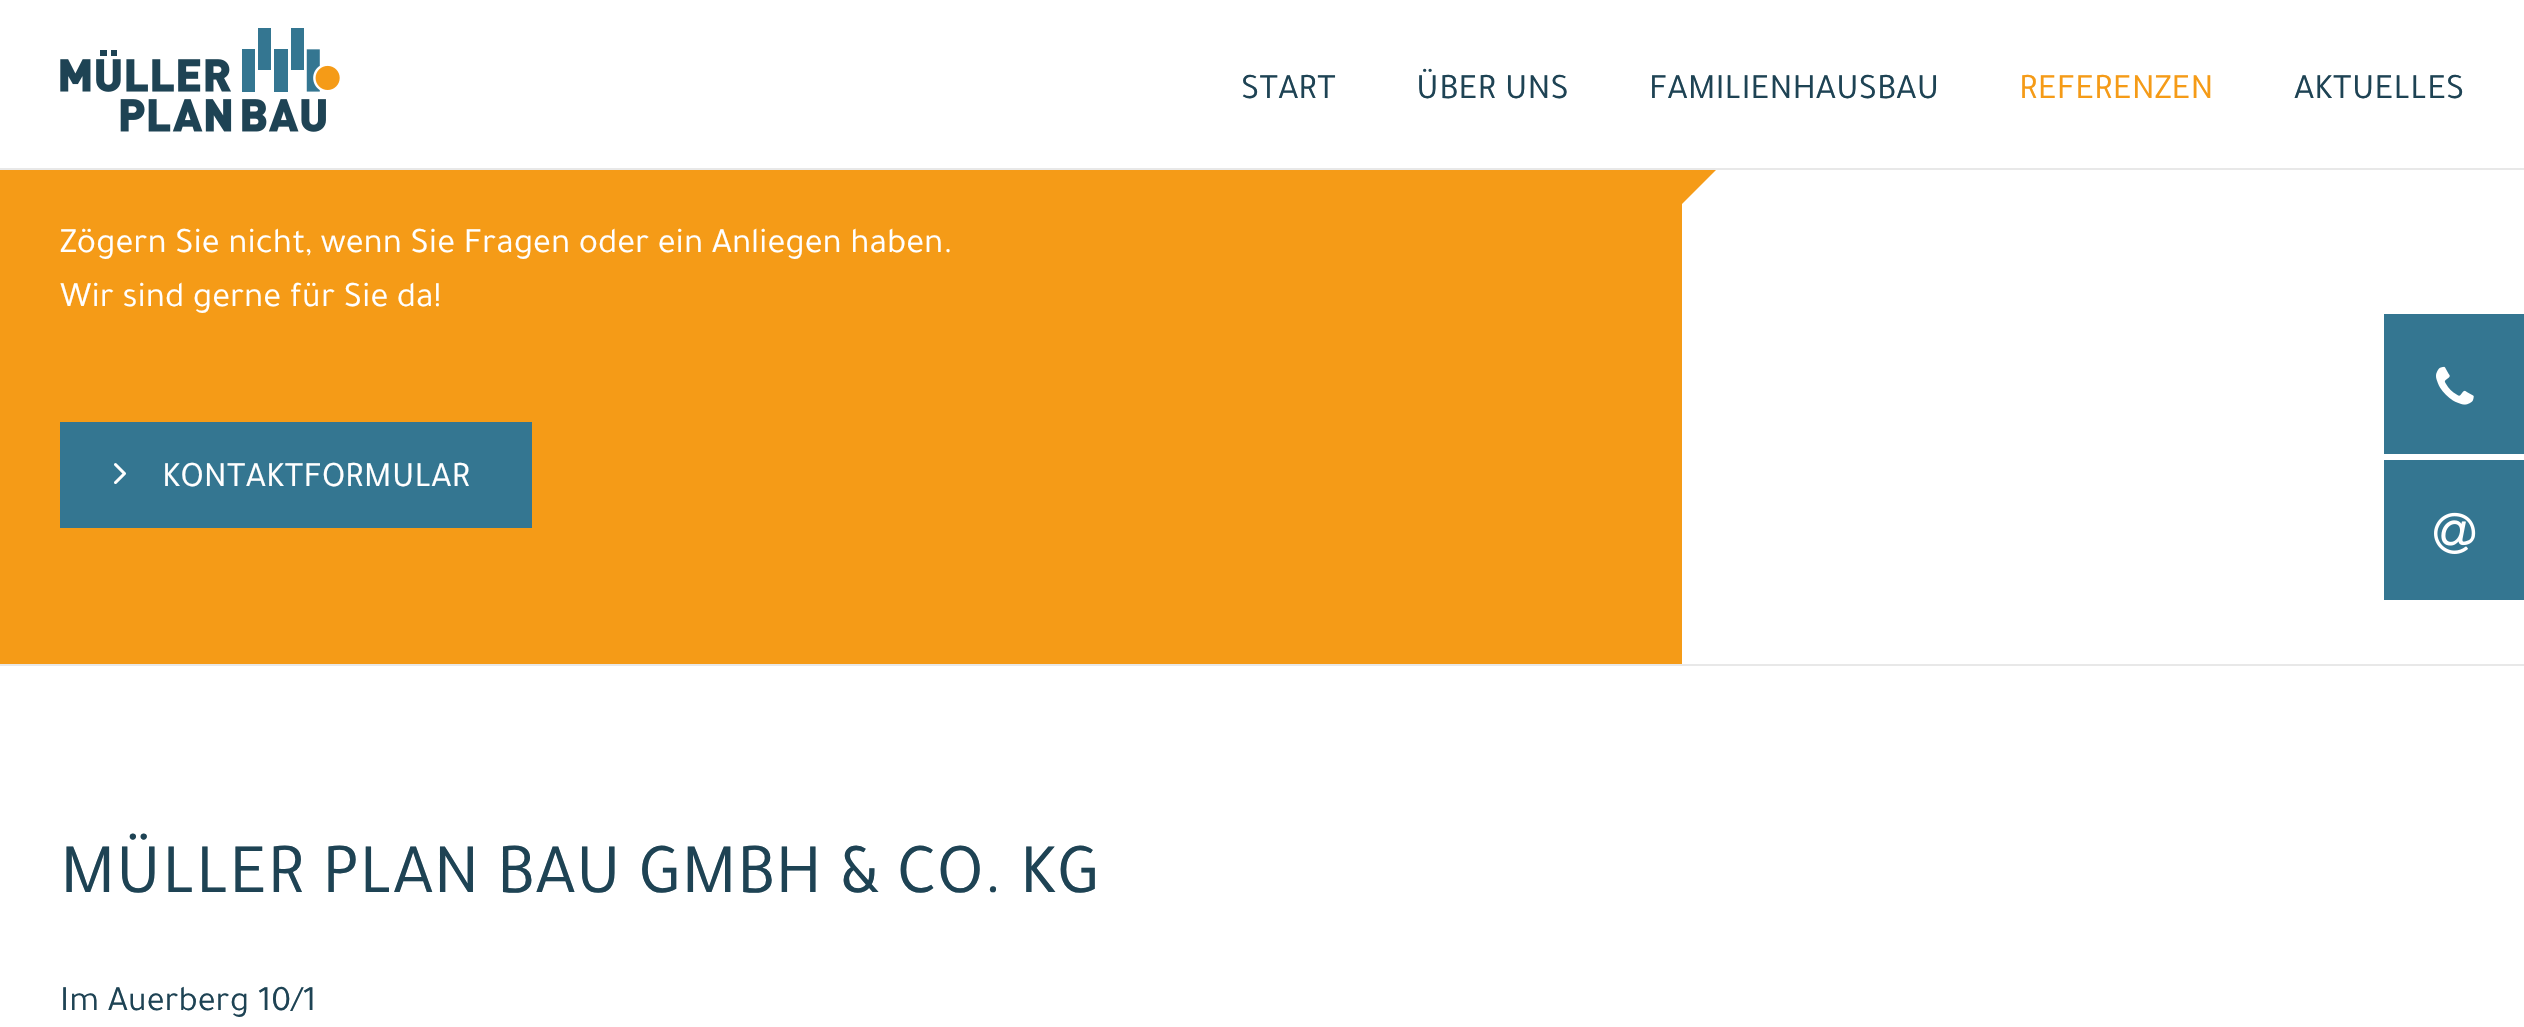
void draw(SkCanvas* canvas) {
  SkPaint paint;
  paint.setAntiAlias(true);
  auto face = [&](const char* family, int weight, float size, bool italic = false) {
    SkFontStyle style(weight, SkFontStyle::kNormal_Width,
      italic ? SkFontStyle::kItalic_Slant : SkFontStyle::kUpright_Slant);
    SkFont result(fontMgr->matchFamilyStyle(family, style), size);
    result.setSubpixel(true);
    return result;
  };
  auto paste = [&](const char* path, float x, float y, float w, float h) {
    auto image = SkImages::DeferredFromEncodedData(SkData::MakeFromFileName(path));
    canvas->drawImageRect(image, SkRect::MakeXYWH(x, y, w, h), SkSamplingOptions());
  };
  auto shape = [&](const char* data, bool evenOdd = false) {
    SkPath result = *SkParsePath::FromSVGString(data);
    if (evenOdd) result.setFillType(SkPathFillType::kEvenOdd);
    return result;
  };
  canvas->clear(0xffffffff);
  paint.setColor(0xfff59b17);
  canvas->drawPath(shape("M1682 204V-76L1822 64Z"), paint);
  paint.setColor(0xffffffff);
  canvas->drawRect(SkRect::MakeXYWH(1682, 0, 140, 168), paint);
  paint.setColor(0xffe8e8e8);
  canvas->drawRect(SkRect::MakeXYWH(0, 168, 2524, 2), paint);
  paste("img/1.png", 60, 28, 280, 104);
  paint.setColor(0xfff59b17);
  canvas->drawRect(SkRect::MakeXYWH(0, 170, 1682, 494), paint);
  paint.setColor(0xff347691);
  canvas->drawRect(SkRect::MakeXYWH(60, 422, 472, 106), paint);
  paste("img/2.png", 114, 463, 12, 21);
  canvas->drawRect(SkRect::MakeXYWH(2384, 314, 140, 140), paint);
  paste("img/3.png", 2436, 366, 38, 39);
  canvas->drawRect(SkRect::MakeXYWH(2384, 460, 140, 140), paint);
  paste("img/4.png", 2434, 512, 42, 42);
  paint.setColor(0xffe8e8e8);
  canvas->drawRect(SkRect::MakeXYWH(0, 664, 2524, 2), paint);
  auto f0 = face("Tajawal", 400, 36);
  paint.setColor(0xff1e4354);
  {
    const struct { const char* s; float x, y; } items[] = {
      {"START", 1241, 98},
      {"ÜBER UNS", 1416, 98},
      {"FAMILIENHAUSBAU", 1649, 98},
    };
    for (auto [s, x, y] : items) {
      canvas->drawString(s, x, y, f0, paint);
    }
  }
  paint.setColor(0xfff59b17);
  canvas->drawString("REFERENZEN", 2019, 98, f0, paint);
  paint.setColor(0xff1e4354);
  canvas->drawString("AKTUELLES", 2294, 98, f0, paint);
  paint.setColor(0xffffffff);
  {
    const struct { const char* s; float x, y; } items[] = {
      {"Zögern Sie nicht, wenn Sie Fragen oder ein Anliegen haben.", 60, 252},
      {"Wir sind gerne für Sie da!", 60, 306},
      {"KONTAKTFORMULAR", 162, 486},
    };
    for (auto [s, x, y] : items) {
      canvas->drawString(s, x, y, f0, paint);
    }
  }
  auto f1 = face("Tajawal", 400, 72);
  paint.setColor(0xff1e4354);
  canvas->drawString("MÜLLER PLAN BAU GMBH & CO. KG", 60, 892, f1, paint);
  canvas->drawString("Im Auerberg 10/1", 60, 1010, f0, paint);
}
